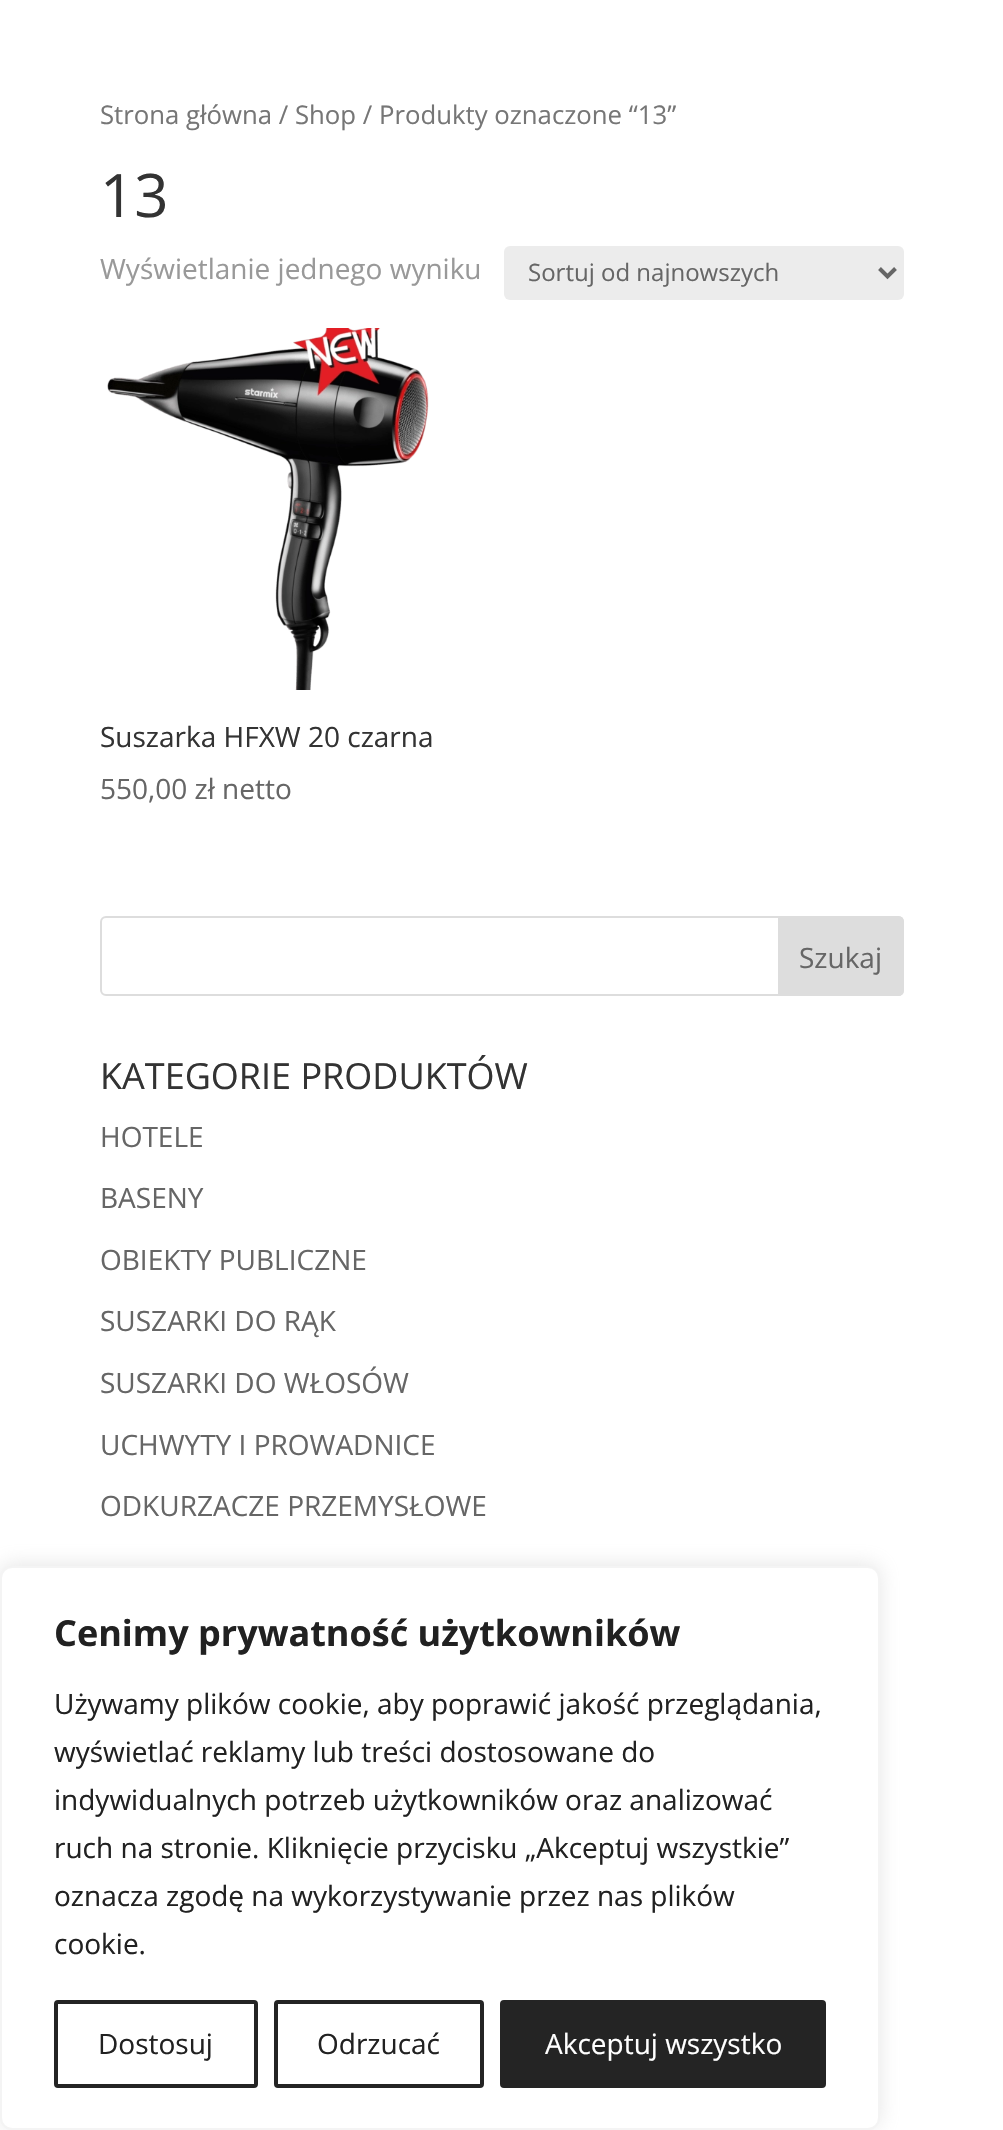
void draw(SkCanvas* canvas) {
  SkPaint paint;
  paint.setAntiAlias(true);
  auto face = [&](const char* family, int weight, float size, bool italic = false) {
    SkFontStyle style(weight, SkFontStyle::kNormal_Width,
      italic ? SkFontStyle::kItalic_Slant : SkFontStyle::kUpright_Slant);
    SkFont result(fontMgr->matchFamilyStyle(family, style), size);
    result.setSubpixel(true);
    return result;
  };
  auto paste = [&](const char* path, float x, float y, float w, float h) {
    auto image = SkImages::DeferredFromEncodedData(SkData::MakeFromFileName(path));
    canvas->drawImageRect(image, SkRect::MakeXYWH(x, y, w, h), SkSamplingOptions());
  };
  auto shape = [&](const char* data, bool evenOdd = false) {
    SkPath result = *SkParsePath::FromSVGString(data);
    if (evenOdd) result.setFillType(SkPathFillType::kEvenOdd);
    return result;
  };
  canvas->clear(0xffffffff);
  paint.setColor(0xffececec);
  canvas->drawRoundRect(SkRect::MakeXYWH(504, 246, 400, 54), 6, 6, paint);
  paint.setStroke(true);
  paint.setStrokeWidth(4);
  paint.setColor(0xff666666);
  canvas->drawPath(shape("M879.5 268.5L887.5 276.5L895.5 268.5"), paint);
  paste("img/1.png", 107, 328, 322, 362);
  paint.setStrokeWidth(2);
  paint.setColor(0xffdddddd);
  canvas->drawRoundRect(SkRect::MakeXYWH(101, 917, 802, 78), 5, 5, paint);
  paint.setStroke(false);
  canvas->drawPath(shape("M779 917H898C901 917 903 919 903 922V990C903 993 901 995 898 995H779Z"), paint);
  paint.setStroke(true);
  canvas->drawPath(shape("M779 917H898C901 917 903 919 903 922V990C903 993 901 995 898 995H779Z"), paint);
  paint.setStroke(false);
  paint.setColor(0x4dacabab);
  paint.setMaskFilter(SkMaskFilter::MakeBlur(kNormal_SkBlurStyle, 10));
  canvas->drawRoundRect(SkRect::MakeXYWH(0, 1564, 880, 564), 12, 12, paint);
  paint.setMaskFilter(nullptr);
  paint.setColor(0xffffffff);
  canvas->drawRoundRect(SkRect::MakeXYWH(1, 1567, 878, 562), 11, 11, paint);
  paint.setStroke(true);
  paint.setColor(0xfff4f4f4);
  canvas->drawRoundRect(SkRect::MakeXYWH(1, 1567, 878, 562), 11, 11, paint);
  paint.setStrokeWidth(4);
  paint.setColor(0xff242424);
  canvas->drawRoundRect(SkRect::MakeXYWH(56, 2002, 200, 84), 2, 2, paint);
  canvas->drawRoundRect(SkRect::MakeXYWH(276, 2002, 206, 84), 2, 2, paint);
  paint.setStroke(false);
  canvas->drawRoundRect(SkRect::MakeXYWH(502, 2002, 322, 84), 2, 2, paint);
  paint.setStroke(true);
  canvas->drawRoundRect(SkRect::MakeXYWH(502, 2002, 322, 84), 2, 2, paint);
  auto f0 = face("Open Sans", 400, 25.75f);
  paint.setStroke(false);
  paint.setColor(0xff767676);
  canvas->drawString("Strona główna / Shop / Produkty oznaczone “13”", 100, 124, f0, paint);
  auto f1 = face("Open Sans", 400, 60);
  paint.setColor(0xff333333);
  canvas->drawString("13", 100, 217, f1, paint);
  auto f2 = face("Open Sans", 400, 28);
  paint.setColor(0xff999999);
  canvas->drawString("Wyświetlanie jednego wyniku", 100, 279, f2, paint);
  auto f3 = face("Open Sans", 400, 24);
  paint.setColor(0xff666666);
  canvas->drawString("Sortuj od najnowszych", 528, 281, f3, paint);
  paint.setColor(0xff333333);
  canvas->drawString("Suszarka HFXW 20 czarna", 100, 747, f2, paint);
  paint.setColor(0xff666666);
  canvas->drawString("550,00 zł netto", 100, 799, f2, paint);
  canvas->drawString("Szukaj", 799, 968, f2, paint);
  auto f4 = face("Open Sans", 400, 36);
  paint.setColor(0xff333333);
  canvas->drawString("KATEGORIE PRODUKTÓW", 100, 1089, f4, paint);
  paint.setColor(0xff666666);
  {
    const struct { const char* s; float x, y; } items[] = {
      {"HOTELE", 100, 1147},
      {"BASENY", 100, 1208},
      {"OBIEKTY PUBLICZNE", 100, 1270},
      {"SUSZARKI DO RĄK", 100, 1331},
      {"SUSZARKI DO WŁOSÓW", 100, 1393},
      {"UCHWYTY I PROWADNICE", 100, 1455},
      {"ODKURZACZE PRZEMYSŁOWE", 100, 1516},
    };
    for (auto [s, x, y] : items) {
      canvas->drawString(s, x, y, f2, paint);
    }
  }
  auto f5 = face("Open Sans", 700, 36);
  paint.setColor(0xff212121);
  canvas->drawString("Cenimy prywatność użytkowników", 54, 1646, f5, paint);
  {
    const struct { const char* s; float x, y; } items[] = {
      {"Używamy plików cookie, aby poprawić jakość przeglądania,", 54, 1714},
      {"wyświetlać reklamy lub treści dostosowane do", 54, 1762},
      {"indywidualnych potrzeb użytkowników oraz analizować", 54, 1810},
      {"ruch na stronie. Kliknięcie przycisku „Akceptuj wszystkie”", 54, 1858},
      {"oznacza zgodę na wykorzystywanie przez nas plików", 54, 1906},
      {"cookie.", 54, 1954},
      {"Dostosuj", 98, 2054},
      {"Odrzucać", 317, 2054},
    };
    for (auto [s, x, y] : items) {
      canvas->drawString(s, x, y, f2, paint);
    }
  }
  paint.setColor(0xffffffff);
  canvas->drawString("Akceptuj wszystko", 545, 2054, f2, paint);
}
